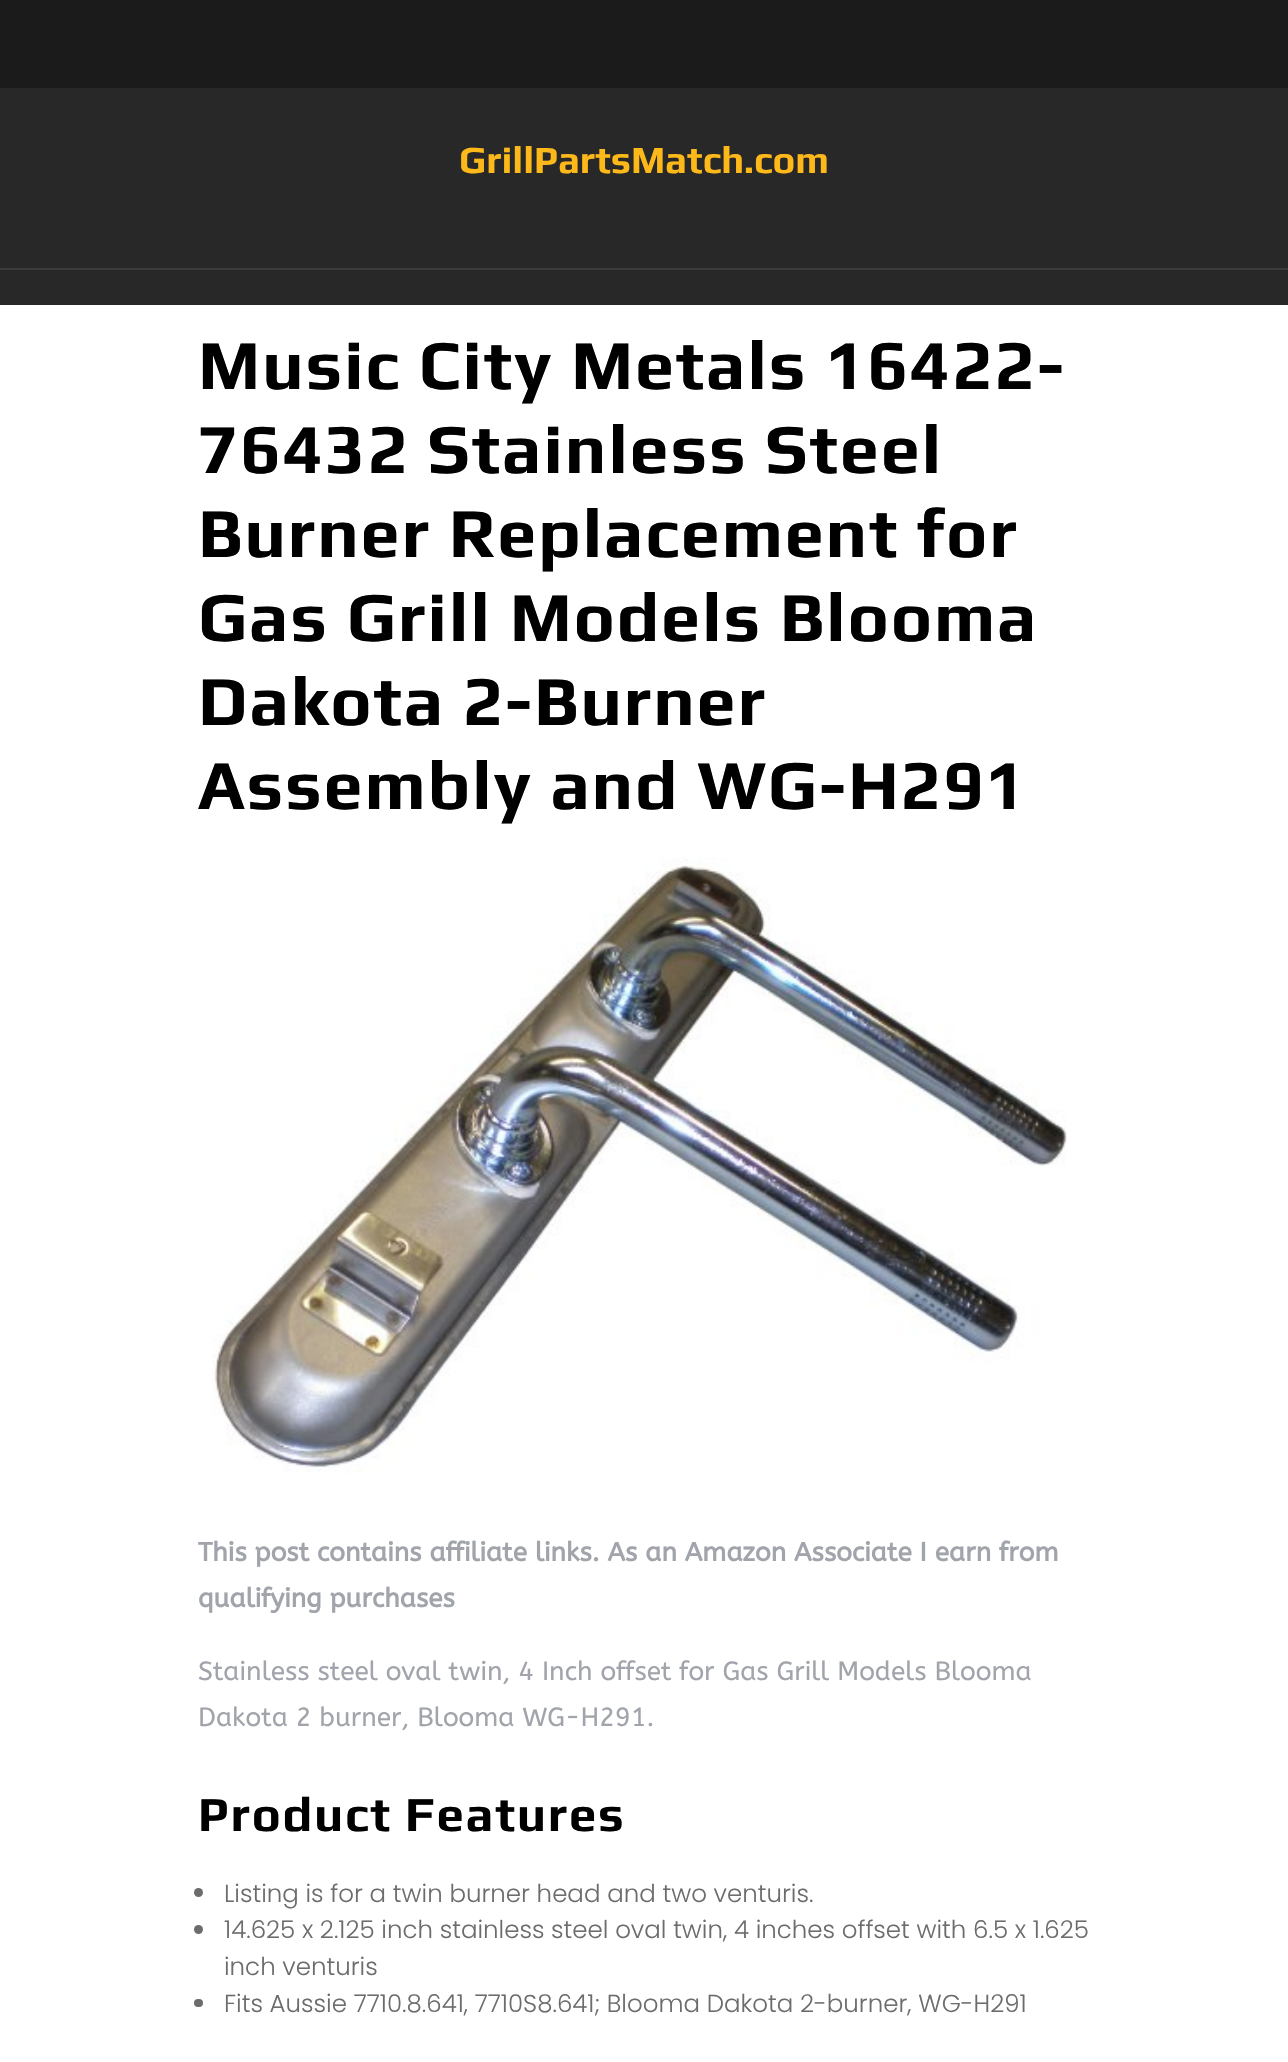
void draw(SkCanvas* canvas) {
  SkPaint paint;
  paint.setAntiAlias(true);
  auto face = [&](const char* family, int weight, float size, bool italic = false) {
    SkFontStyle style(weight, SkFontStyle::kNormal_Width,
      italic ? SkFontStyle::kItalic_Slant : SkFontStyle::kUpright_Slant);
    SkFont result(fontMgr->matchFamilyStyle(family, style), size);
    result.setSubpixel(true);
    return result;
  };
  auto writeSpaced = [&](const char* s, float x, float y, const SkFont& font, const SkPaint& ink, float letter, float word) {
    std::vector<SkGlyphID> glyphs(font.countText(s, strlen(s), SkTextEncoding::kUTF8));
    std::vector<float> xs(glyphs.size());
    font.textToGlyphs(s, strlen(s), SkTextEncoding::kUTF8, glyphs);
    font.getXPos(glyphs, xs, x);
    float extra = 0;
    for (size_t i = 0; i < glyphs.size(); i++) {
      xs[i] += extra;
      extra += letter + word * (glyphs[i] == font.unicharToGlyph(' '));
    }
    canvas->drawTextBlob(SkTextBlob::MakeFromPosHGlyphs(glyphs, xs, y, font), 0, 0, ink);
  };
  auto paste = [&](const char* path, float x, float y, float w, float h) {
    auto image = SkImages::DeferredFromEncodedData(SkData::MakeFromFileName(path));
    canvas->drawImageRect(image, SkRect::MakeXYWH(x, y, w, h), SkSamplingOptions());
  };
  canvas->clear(0xffffffff);
  {
    const struct { float x, y, w, h; SkColor color; } items[] = {
      {0, 0, 1288, 88, 0xff1b1b1b},
      {0, 88, 1288, 180, 0xff282828},
      {0, 270, 1288, 35, 0xff282828},
      {0, 268, 1288, 2, 0xff3b3b3b},
    };
    for (auto [x, y, w, h, color] : items) {
      paint.setColor(color);
      canvas->drawRect(SkRect::MakeXYWH(x, y, w, h), paint);
    }
  }
  paste("img/1.png", 212, 857, 855, 616);
  paint.setColor(0xff6c6c6c);
  canvas->drawCircle(198.5f, 1892.5f, 4.5f, paint);
  canvas->drawCircle(198.5f, 1929.5f, 4.5f, paint);
  canvas->drawRoundRect(SkRect::MakeXYWH(194, 1999, 9, 8), 4, 4, paint);
  auto f0 = face("Play", 700, 38.5f);
  paint.setColor(0xfffdb819);
  canvas->drawString("GrillPartsMatch.com", 459, 173, f0, paint);
  auto f1 = face("Play", 700, 70);
  paint.setColor(0xff000000);
  {
    const struct { const char* s; float x, y; } items[] = {
      {"Music City Metals 16422-", 198, 389},
      {"76432 Stainless Steel", 198, 473},
      {"Burner Replacement for", 198, 557},
      {"Gas Grill Models Blooma", 198, 641},
      {"Dakota 2-Burner", 198, 725},
      {"Assembly and WG-H291", 198, 809},
    };
    for (auto [s, x, y] : items) {
      writeSpaced(s, x, y, f1, paint, 1.75f, 0);
    }
  }
  auto f2 = face("ABeeZee", 700, 26.25f);
  paint.setColor(0xffa1a5ab);
  canvas->drawString("This post contains affiliate links. As an Amazon Associate I earn from", 198, 1561, f2, paint);
  canvas->drawString("qualifying purchases", 198, 1607, f2, paint);
  auto f3 = face("ABeeZee", 400, 26.25f);
  canvas->drawString("Stainless steel oval twin, 4 Inch offset for Gas Grill Models Blooma", 198, 1680, f3, paint);
  canvas->drawString("Dakota 2 burner, Blooma WG-H291.", 198, 1726, f3, paint);
  auto f4 = face("Play", 700, 49);
  paint.setColor(0xff000000);
  writeSpaced("Product Features", 198, 1831, f4, paint, 1.75f, 0);
  auto f5 = face("Poppins", 300, 24.5f);
  paint.setColor(0xff6c6c6c);
  {
    const struct { const char* s; float x, y; } items[] = {
      {"Listing is for a twin burner head and two venturis.", 224, 1902},
      {"14.625 x 2.125 inch stainless steel oval twin, 4 inches offset with 6.5 x 1.625", 224, 1938},
      {"inch venturis", 224, 1975},
      {"Fits Aussie 7710.8.641, 7710S8.641; Blooma Dakota 2-burner, WG-H291", 224, 2012},
    };
    for (auto [s, x, y] : items) {
      canvas->drawString(s, x, y, f5, paint);
    }
  }
}
